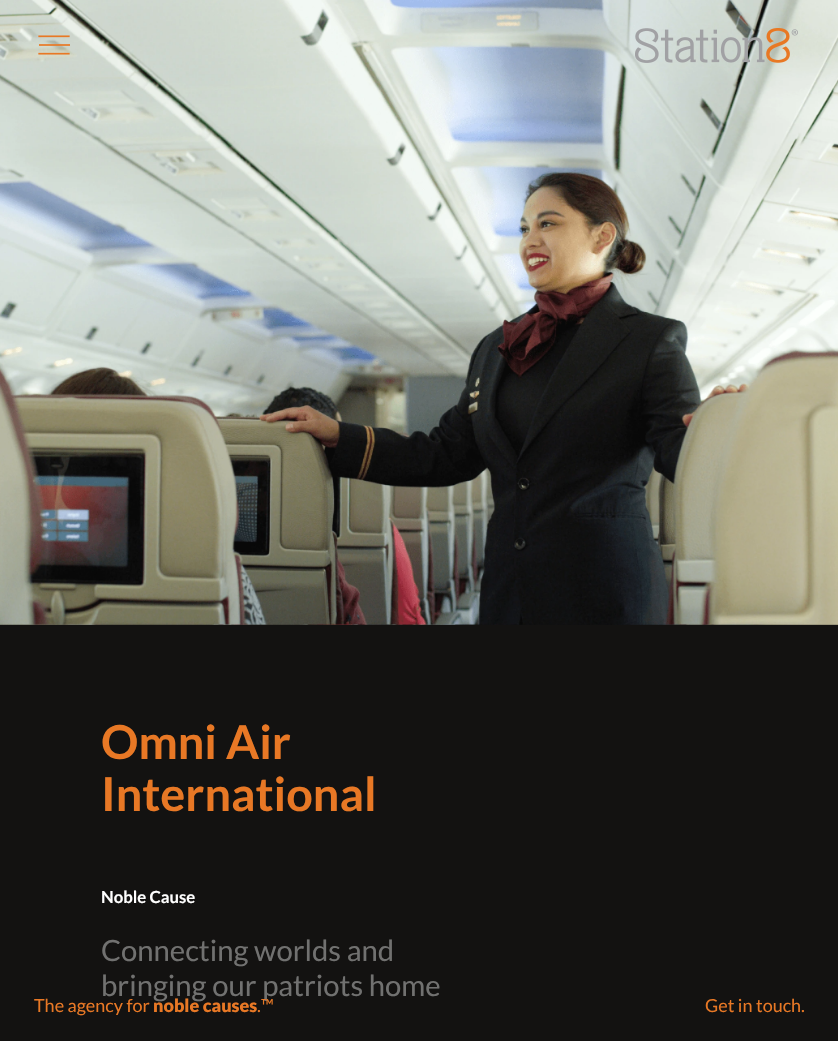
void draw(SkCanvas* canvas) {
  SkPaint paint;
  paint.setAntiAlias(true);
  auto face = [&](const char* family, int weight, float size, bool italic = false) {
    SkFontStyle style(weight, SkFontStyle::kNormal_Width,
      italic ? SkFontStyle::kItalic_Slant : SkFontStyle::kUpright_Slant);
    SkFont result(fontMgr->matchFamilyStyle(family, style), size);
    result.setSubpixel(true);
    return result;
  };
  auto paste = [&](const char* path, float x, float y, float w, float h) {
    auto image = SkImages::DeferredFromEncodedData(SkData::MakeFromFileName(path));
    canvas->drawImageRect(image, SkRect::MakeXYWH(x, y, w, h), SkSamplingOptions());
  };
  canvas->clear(0xff131211);
  paste("img/3.png", 0, 0, 838, 625);
  paste("img/1.png", 38, 35, 32, 20);
  paste("img/2.png", 635, 28, 163, 35);
  auto f0 = face("Lato", 700, 46.75f);
  paint.setColor(0xffe87825);
  canvas->drawString("Omni Air", 101, 759, f0, paint);
  canvas->drawString("International", 101, 811, f0, paint);
  auto f1 = face("Lato", 700, 16.75f);
  paint.setColor(0xffffffff);
  canvas->drawString("Noble Cause", 101, 903, f1, paint);
  auto f2 = face("Lato", 400, 29.25f);
  paint.setColor(0xff717170);
  canvas->drawString("Connecting worlds and", 101, 961, f2, paint);
  canvas->drawString("bringing our patriots home", 101, 996, f2, paint);
  auto f3 = face("Lato", 400, 18);
  paint.setColor(0xffe87825);
  canvas->drawString("The agency for", 34, 1012, f3, paint);
  auto f4 = face("Lato", 900, 18);
  canvas->drawString("noble causes", 153, 1012, f4, paint);
  canvas->drawString(".™", 257, 1012, f3, paint);
  canvas->drawString("Get in touch.", 705, 1012, f3, paint);
}
